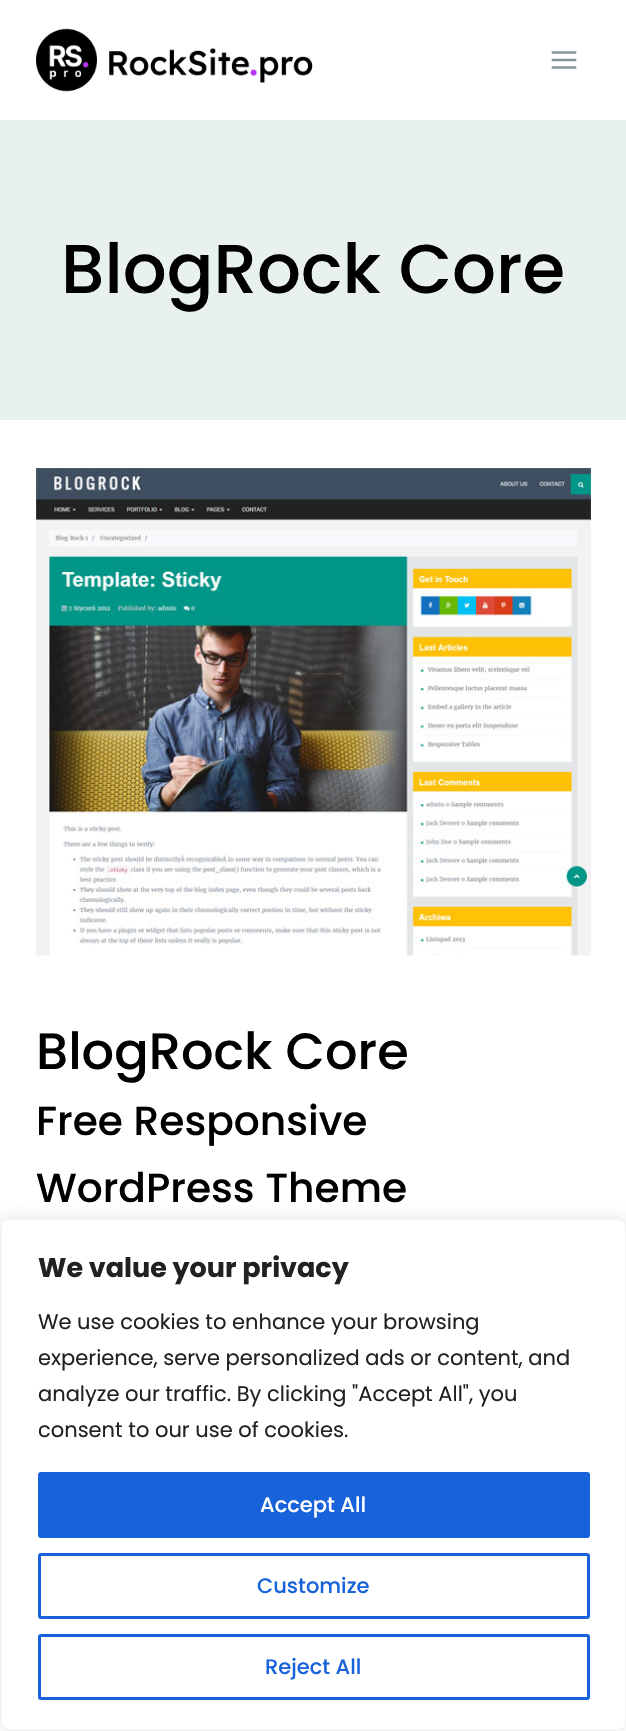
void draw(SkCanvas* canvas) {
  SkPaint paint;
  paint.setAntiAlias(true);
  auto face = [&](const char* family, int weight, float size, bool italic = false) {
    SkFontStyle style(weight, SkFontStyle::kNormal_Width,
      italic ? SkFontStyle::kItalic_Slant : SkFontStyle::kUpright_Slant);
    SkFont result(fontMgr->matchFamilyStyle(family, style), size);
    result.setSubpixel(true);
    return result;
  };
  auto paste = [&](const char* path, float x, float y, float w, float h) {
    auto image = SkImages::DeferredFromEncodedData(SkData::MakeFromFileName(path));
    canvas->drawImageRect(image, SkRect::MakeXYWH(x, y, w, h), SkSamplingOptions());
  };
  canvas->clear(0xffffffff);
  paste("img/1.png", 36, 28, 277, 64);
  paste("img/2.png", 551, 51, 26, 18);
  paint.setColor(0xffe8f0f0);
  canvas->drawRect(SkRect::MakeXYWH(0, 120, 626, 300), paint);
  paste("img/3.png", 36, 468, 555, 488);
  paint.setColor(0x4dacabab);
  paint.setMaskFilter(SkMaskFilter::MakeBlur(kNormal_SkBlurStyle, 7.5f));
  canvas->drawRoundRect(SkRect::MakeXYWH(0, 1217, 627, 513), 9, 9, paint);
  paint.setMaskFilter(nullptr);
  paint.setColor(0xffffffff);
  canvas->drawRoundRect(SkRect::MakeXYWH(1, 1219, 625, 511), 8, 8, paint);
  paint.setStroke(true);
  paint.setStrokeWidth(2);
  paint.setColor(0xfff4f4f4);
  canvas->drawRoundRect(SkRect::MakeXYWH(1, 1219, 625, 511), 8, 8, paint);
  paint.setStroke(false);
  paint.setColor(0xff1863dc);
  canvas->drawRoundRect(SkRect::MakeXYWH(39.5f, 1473.5f, 549, 63), 1.5f, 1.5f, paint);
  paint.setStroke(true);
  paint.setStrokeWidth(3);
  canvas->drawRoundRect(SkRect::MakeXYWH(39.5f, 1473.5f, 549, 63), 1.5f, 1.5f, paint);
  canvas->drawRoundRect(SkRect::MakeXYWH(39.5f, 1554.5f, 549, 63), 1.5f, 1.5f, paint);
  canvas->drawRoundRect(SkRect::MakeXYWH(39.5f, 1635.5f, 549, 63), 1.5f, 1.5f, paint);
  auto f0 = face("Poppins", 500, 69);
  paint.setStroke(false);
  paint.setColor(0xff000000);
  canvas->drawString("BlogRock Core", 61, 293, f0, paint);
  auto f1 = face("Poppins", 500, 51);
  canvas->drawString("BlogRock Core", 36, 1069, f1, paint);
  auto f2 = face("Poppins", 500, 40.75f);
  canvas->drawString("Free Responsive", 36, 1135, f2, paint);
  canvas->drawString("WordPress Theme", 36, 1202, f2, paint);
  auto f3 = face("Poppins", 700, 27);
  paint.setColor(0xff212121);
  canvas->drawString("We value your privacy", 38, 1277, f3, paint);
  auto f4 = face("Poppins", 400, 21);
  {
    const struct { const char* s; float x, y; } items[] = {
      {"We use cookies to enhance your browsing", 38, 1329},
      {"experience, serve personalized ads or content, and", 38, 1365},
      {"analyze our traffic. By clicking \"Accept All\", you", 38, 1401},
      {"consent to our use of cookies.", 38, 1437},
    };
    for (auto [s, x, y] : items) {
      canvas->drawString(s, x, y, f4, paint);
    }
  }
  auto f5 = face("Poppins", 500, 21);
  paint.setColor(0xffffffff);
  canvas->drawString("Accept All", 260, 1512, f5, paint);
  paint.setColor(0xff1863dc);
  canvas->drawString("Customize", 257, 1593, f5, paint);
  canvas->drawString("Reject All", 265, 1674, f5, paint);
}
